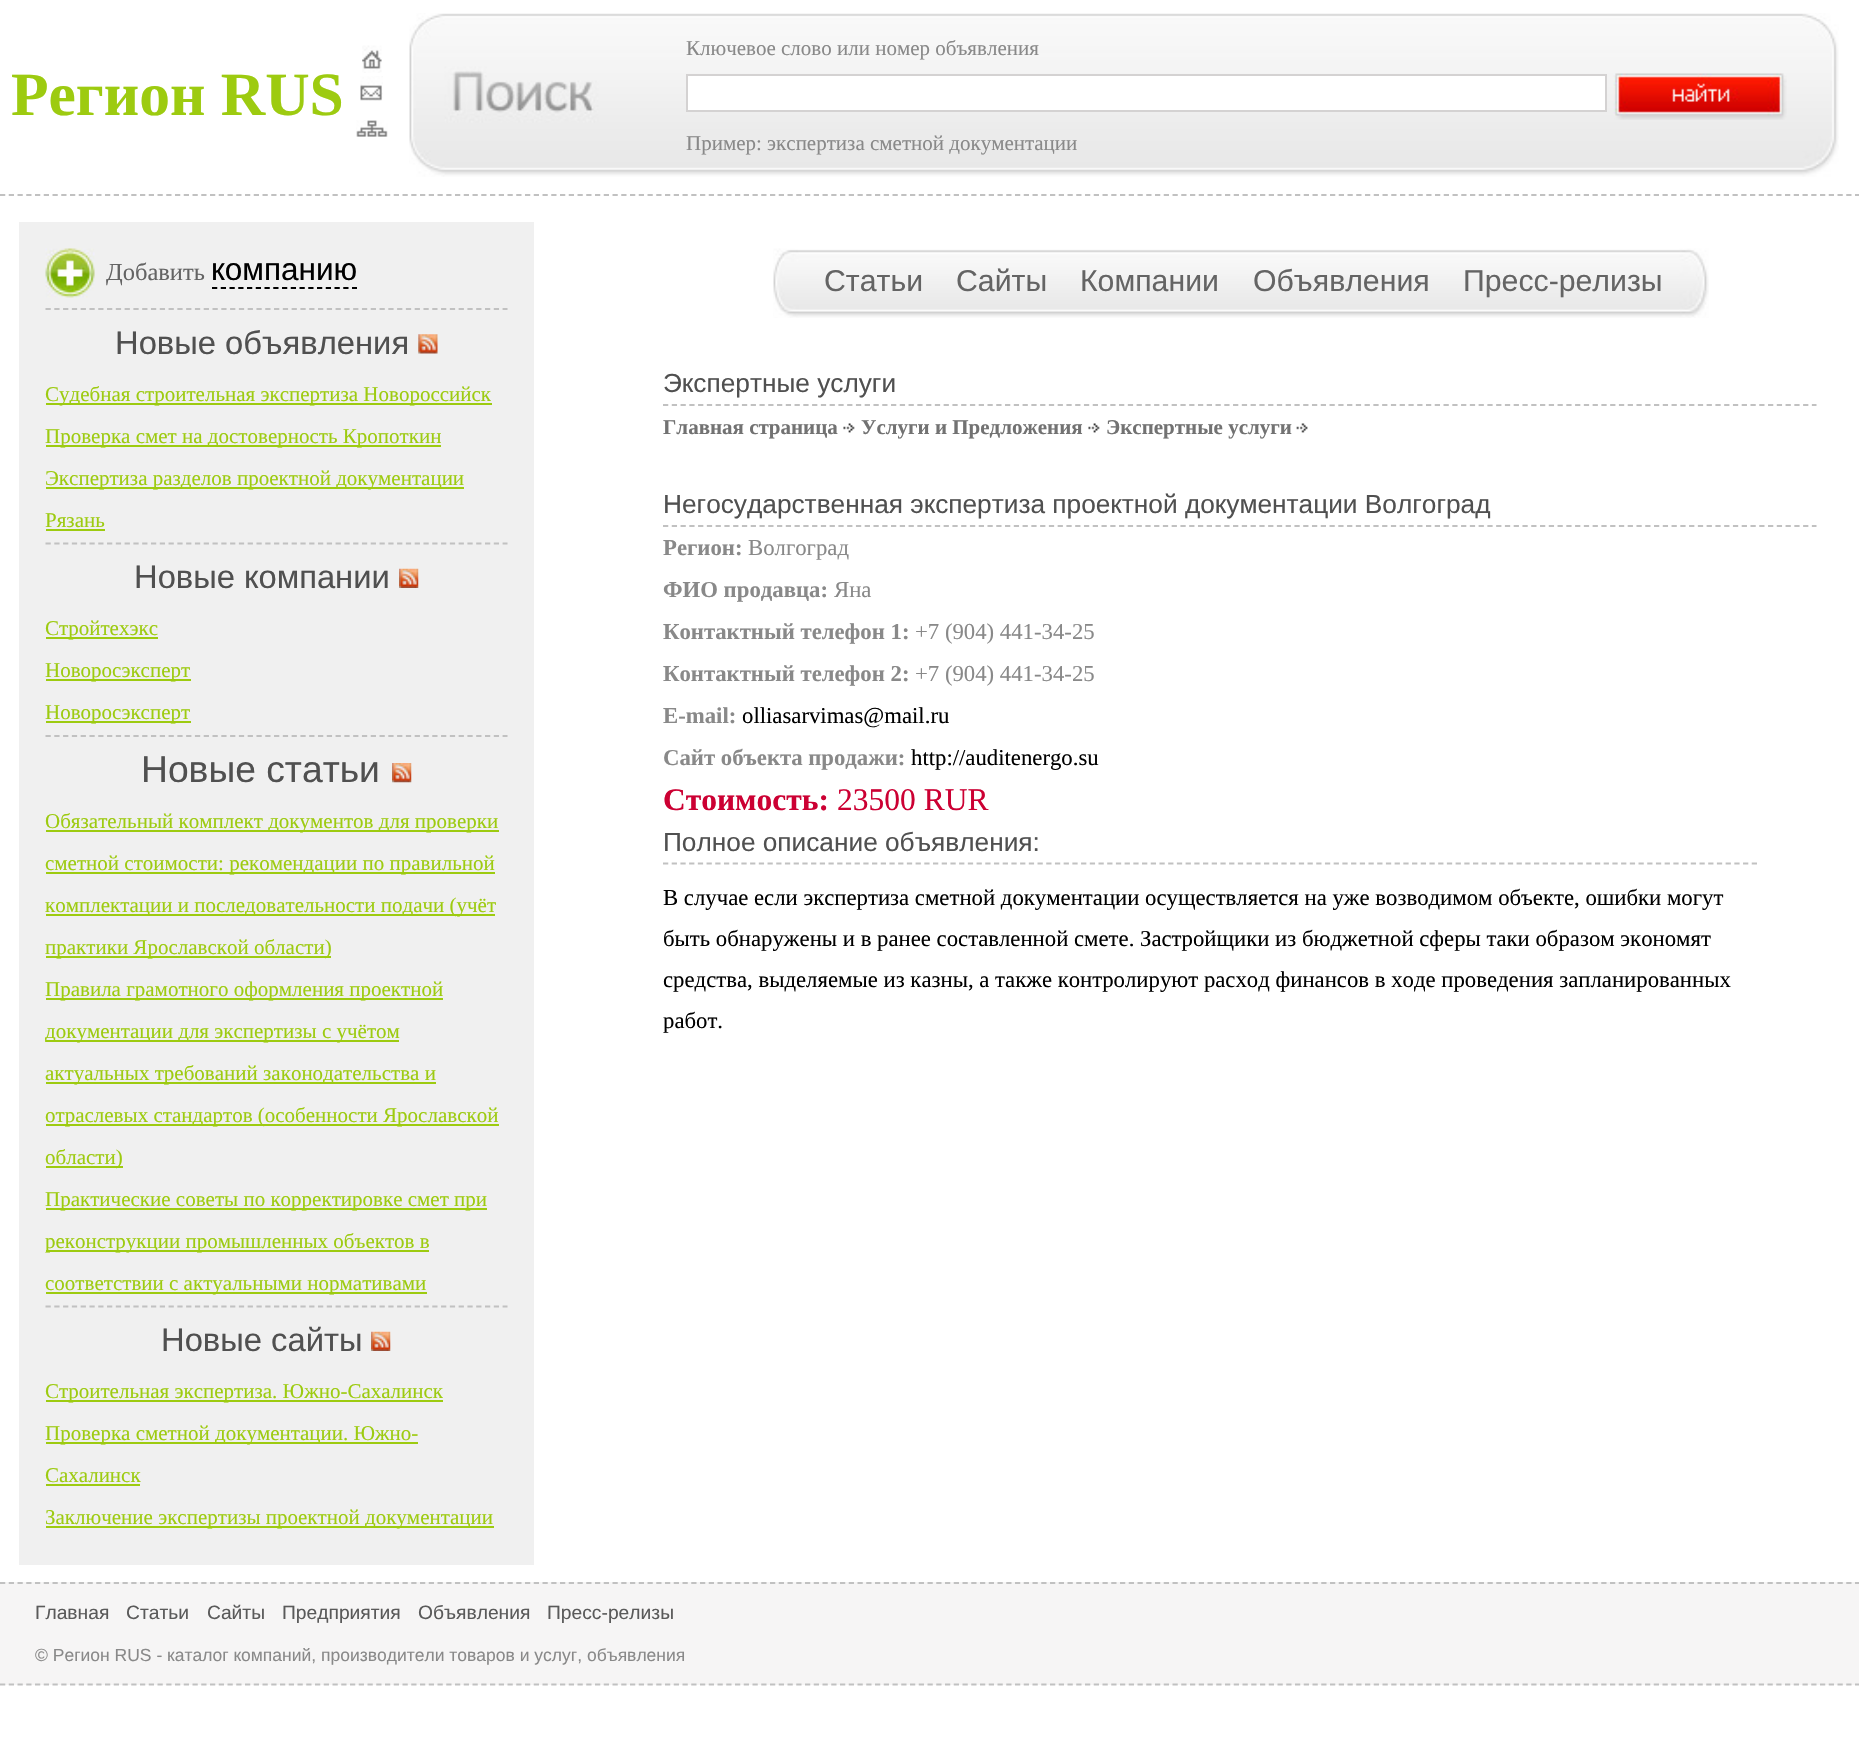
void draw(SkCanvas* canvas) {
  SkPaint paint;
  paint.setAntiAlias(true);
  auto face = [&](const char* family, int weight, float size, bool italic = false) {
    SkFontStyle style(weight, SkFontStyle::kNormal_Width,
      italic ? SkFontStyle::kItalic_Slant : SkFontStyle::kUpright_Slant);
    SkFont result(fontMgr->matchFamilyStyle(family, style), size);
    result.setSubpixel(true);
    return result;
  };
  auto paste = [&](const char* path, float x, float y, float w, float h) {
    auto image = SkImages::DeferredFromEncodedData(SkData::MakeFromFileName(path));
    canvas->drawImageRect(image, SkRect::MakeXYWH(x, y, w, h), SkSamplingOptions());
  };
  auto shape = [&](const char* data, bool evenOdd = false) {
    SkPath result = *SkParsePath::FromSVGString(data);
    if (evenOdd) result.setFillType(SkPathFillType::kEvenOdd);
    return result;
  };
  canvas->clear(0xffffffff);
  paste("img/1.png", 362, 45, 20, 28);
  paste("img/2.png", 360, 76, 23, 25);
  paste("img/3.png", 356, 120, 32, 17);
  paste("img/4.png", 409, 13, 1430, 164);
  paint.setColor(0xffffffff);
  canvas->drawRect(SkRect::MakeXYWH(687, 75, 919, 36), paint);
  paint.setStroke(true);
  paint.setStrokeWidth(2);
  paint.setColor(0xffd4d2d2);
  canvas->drawRect(SkRect::MakeXYWH(687, 75, 919, 36), paint);
  paste("img/5.png", 1613, 73, 174, 47);
  paint.setStrokeWidth(1.8f);
  paint.setColor(0xffc1c1c1);
  paint.setPathEffect(SkDashPathEffect::Make({{5.25f, 3.5f}}, 0));
  canvas->drawPath(shape("M0 195H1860"), paint);
  paint.setPathEffect(nullptr);
  paint.setStroke(false);
  paint.setColor(0xfff0f0f0);
  canvas->drawRect(SkRect::MakeXYWH(19, 222, 515, 1343), paint);
  paste("img/6.png", 45, 248, 50, 50);
  paint.setStroke(true);
  paint.setColor(0xff000000);
  paint.setPathEffect(SkDashPathEffect::Make({{5.25f, 3.5f}}, 0));
  canvas->drawPath(shape("M212 288H357"), paint);
  paint.setPathEffect(nullptr);
  paint.setColor(0xffc1c1c1);
  paint.setPathEffect(SkDashPathEffect::Make({{5.25f, 3.54f}}, 0));
  canvas->drawPath(shape("M45.5 309H507.5"), paint);
  paint.setPathEffect(nullptr);
  paste("img/7.png", 418, 334, 20, 20);
  paint.setStroke(false);
  {
    const struct { float x, y, w, h; SkColor color; } items[] = {
      {46, 403, 446, 2, 0xff9dcb10},
      {46, 445, 395, 2, 0xff9dcb10},
      {46, 487, 418, 2, 0xff9dcb10},
      {46, 529, 59, 2, 0xff9dcb10},
    };
    for (auto [x, y, w, h, color] : items) {
      paint.setColor(color);
      canvas->drawRect(SkRect::MakeXYWH(x, y, w, h), paint);
    }
  }
  paint.setStroke(true);
  paint.setColor(0xffc1c1c1);
  paint.setPathEffect(SkDashPathEffect::Make({{5.25f, 3.54f}}, 0));
  canvas->drawPath(shape("M45.5 543.5H507.5"), paint);
  paint.setPathEffect(nullptr);
  paste("img/8.png", 399, 568, 20, 20);
  paint.setStroke(false);
  {
    const struct { float x, y, w, h; SkColor color; } items[] = {
      {46, 637, 112, 2, 0xff9dcb10},
      {46, 679, 145, 2, 0xff9dcb10},
      {46, 721, 145, 2, 0xff9dcb10},
    };
    for (auto [x, y, w, h, color] : items) {
      paint.setColor(color);
      canvas->drawRect(SkRect::MakeXYWH(x, y, w, h), paint);
    }
  }
  paint.setStroke(true);
  paint.setColor(0xffc1c1c1);
  paint.setPathEffect(SkDashPathEffect::Make({{5.25f, 3.54f}}, 0));
  canvas->drawPath(shape("M45.5 736H507.5"), paint);
  paint.setPathEffect(nullptr);
  paste("img/9.png", 392, 763, 20, 20);
  paint.setStroke(false);
  {
    const struct { float x, y, w, h; SkColor color; } items[] = {
      {46, 830, 453, 2, 0xff9dcb10},
      {46, 872, 449, 2, 0xff9dcb10},
      {46, 914, 449, 2, 0xff9dcb10},
      {46, 956, 285, 2, 0xff9dcb10},
      {46, 998, 397, 2, 0xff9dcb10},
      {46, 1040, 353, 2, 0xff9dcb10},
      {46, 1082, 390, 2, 0xff9dcb10},
      {46, 1124, 453, 2, 0xff9dcb10},
      {46, 1166, 77, 2, 0xff9dcb10},
      {46, 1208, 441, 2, 0xff9dcb10},
      {46, 1250, 383, 2, 0xff9dcb10},
      {46, 1292, 381, 2, 0xff9dcb10},
    };
    for (auto [x, y, w, h, color] : items) {
      paint.setColor(color);
      canvas->drawRect(SkRect::MakeXYWH(x, y, w, h), paint);
    }
  }
  paint.setStroke(true);
  paint.setColor(0xffc1c1c1);
  paint.setPathEffect(SkDashPathEffect::Make({{5.25f, 3.54f}}, 0));
  canvas->drawPath(shape("M45.5 1306.5H507.5"), paint);
  paint.setPathEffect(nullptr);
  paste("img/8.png", 371, 1331, 20, 20);
  paint.setStroke(false);
  {
    const struct { float x, y, w, h; SkColor color; } items[] = {
      {46, 1400, 397, 2, 0xff9dcb10},
      {46, 1442, 372, 2, 0xff9dcb10},
      {46, 1484, 94, 2, 0xff9dcb10},
      {46, 1526, 448, 2, 0xff9dcb10},
    };
    for (auto [x, y, w, h, color] : items) {
      paint.setColor(color);
      canvas->drawRect(SkRect::MakeXYWH(x, y, w, h), paint);
    }
  }
  paste("img/10.png", 773, 248, 936, 70);
  paint.setStroke(true);
  paint.setColor(0xffc1c1c1);
  paint.setPathEffect(SkDashPathEffect::Make({{5.25f, 3.52f}}, 0));
  canvas->drawPath(shape("M663 405H1816.5"), paint);
  paint.setPathEffect(nullptr);
  paste("img/11.png", 843, 423, 12, 10);
  paste("img/11.png", 1088, 423, 12, 10);
  paste("img/12.png", 1296, 423, 12, 10);
  paint.setPathEffect(SkDashPathEffect::Make({{5.25f, 3.52f}}, 0));
  canvas->drawPath(shape("M663 526H1816.5"), paint);
  paint.setPathEffect(nullptr);
  paint.setPathEffect(SkDashPathEffect::Make({{5.25f, 3.46f}}, 0));
  canvas->drawPath(shape("M663 863.5H1759"), paint);
  paint.setPathEffect(nullptr);
  paint.setStroke(false);
  paint.setColor(0xfff6f5f5);
  canvas->drawRect(SkRect::MakeXYWH(0, 1582, 1859, 103), paint);
  paint.setStroke(true);
  paint.setColor(0xffc1c1c1);
  paint.setPathEffect(SkDashPathEffect::Make({{5.25f, 3.5f}}, 0));
  canvas->drawPath(shape("M0 1583H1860"), paint);
  paint.setPathEffect(nullptr);
  paint.setPathEffect(SkDashPathEffect::Make({{5.25f, 3.5f}}, 0));
  canvas->drawPath(shape("M0 1684.5H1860"), paint);
  paint.setPathEffect(nullptr);
  auto f0 = face("Liberation Serif", 700, 61.5f);
  paint.setStroke(false);
  paint.setColor(0xff9dcb10);
  canvas->drawString("Регион RUS", 11, 115, f0, paint);
  auto f1 = face("Liberation Serif", 400, 21);
  paint.setColor(0xff898989);
  canvas->drawString("Ключевое слово или номер объявления", 686, 55, f1, paint);
  canvas->drawString("Пример: экспертиза сметной документации", 686, 150, f1, paint);
  auto f2 = face("Liberation Serif", 400, 24.5f);
  paint.setColor(0xff646464);
  canvas->drawString("Добавить", 106, 280, f2, paint);
  auto f3 = face("Liberation Sans", 400, 31.5f);
  paint.setColor(0xff000000);
  canvas->drawString("компанию", 211, 280, f3, paint);
  auto f4 = face("Liberation Sans", 400, 32.75f);
  paint.setColor(0xff505050);
  canvas->drawString("Новые объявления", 115, 354, f4, paint);
  paint.setColor(0xff9dcb10);
  {
    const struct { const char* s; float x, y; } items[] = {
      {"Судебная строительная экспертиза Новороссийск", 45, 401},
      {"Проверка смет на достоверность Кропоткин", 45, 443},
      {"Экспертиза разделов проектной документации", 45, 485},
      {"Рязань", 45, 527},
    };
    for (auto [s, x, y] : items) {
      canvas->drawString(s, x, y, f1, paint);
    }
  }
  paint.setColor(0xff505050);
  canvas->drawString("Новые компании", 134, 588, f4, paint);
  paint.setColor(0xff9dcb10);
  {
    const struct { const char* s; float x, y; } items[] = {
      {"Стройтехэкс", 45, 635},
      {"Новоросэксперт", 45, 677},
      {"Новоросэксперт", 45, 719},
    };
    for (auto [s, x, y] : items) {
      canvas->drawString(s, x, y, f1, paint);
    }
  }
  auto f5 = face("Liberation Sans", 400, 37.25f);
  paint.setColor(0xff505050);
  canvas->drawString("Новые статьи", 141, 782, f5, paint);
  paint.setColor(0xff9dcb10);
  {
    const struct { const char* s; float x, y; } items[] = {
      {"Обязательный комплект документов для проверки", 45, 828},
      {"сметной стоимости: рекомендации по правильной", 45, 870},
      {"комплектации и последовательности подачи (учёт", 45, 912},
      {"практики Ярославской области)", 45, 954},
      {"Правила грамотного оформления проектной", 45, 996},
      {"документации для экспертизы с учётом", 45, 1038},
      {"актуальных требований законодательства и", 45, 1080},
      {"отраслевых стандартов (особенности Ярославской", 45, 1122},
      {"области)", 45, 1164},
      {"Практические советы по корректировке смет при", 45, 1206},
      {"реконструкции промышленных объектов в", 45, 1248},
      {"соответствии с актуальными нормативами", 45, 1290},
    };
    for (auto [s, x, y] : items) {
      canvas->drawString(s, x, y, f1, paint);
    }
  }
  paint.setColor(0xff505050);
  canvas->drawString("Новые сайты", 161, 1351, f4, paint);
  paint.setColor(0xff9dcb10);
  {
    const struct { const char* s; float x, y; } items[] = {
      {"Строительная экспертиза. Южно-Сахалинск", 45, 1398},
      {"Проверка сметной документации. Южно-", 45, 1440},
      {"Сахалинск", 45, 1482},
      {"Заключение экспертизы проектной документации", 45, 1524},
    };
    for (auto [s, x, y] : items) {
      canvas->drawString(s, x, y, f1, paint);
    }
  }
  auto f6 = face("Liberation Sans", 400, 30.25f);
  paint.setColor(0xff646464);
  {
    const struct { const char* s; float x, y; } items[] = {
      {"Статьи", 824, 291},
      {"Сайты", 956, 291},
      {"Компании", 1080, 291},
      {"Объявления", 1253, 291},
      {"Пресс-релизы", 1463, 291},
    };
    for (auto [s, x, y] : items) {
      canvas->drawString(s, x, y, f6, paint);
    }
  }
  auto f7 = face("Liberation Sans", 400, 26.25f);
  paint.setColor(0xff505050);
  canvas->drawString("Экспертные услуги", 663, 392, f7, paint);
  auto f8 = face("Liberation Serif", 700, 21);
  paint.setColor(0xff727272);
  {
    const struct { const char* s; float x, y; } items[] = {
      {"Главная страница", 663, 434},
      {"Услуги и Предложения", 861, 434},
      {"Экспертные услуги", 1106, 434},
    };
    for (auto [s, x, y] : items) {
      canvas->drawString(s, x, y, f8, paint);
    }
  }
  paint.setColor(0xff505050);
  canvas->drawString("Негосударственная экспертиза проектной документации Волгоград", 663, 513, f7, paint);
  auto f9 = face("Liberation Serif", 700, 22.75f);
  paint.setColor(0xff898989);
  canvas->drawString("Регион:", 663, 555, f9, paint);
  auto f10 = face("Liberation Serif", 400, 22.75f);
  canvas->drawString("Волгоград", 748, 555, f10, paint);
  canvas->drawString("ФИО продавца:", 663, 597, f9, paint);
  canvas->drawString("Яна", 834, 597, f10, paint);
  canvas->drawString("Контактный телефон 1:", 663, 639, f9, paint);
  canvas->drawString("+7 (904) 441-34-25", 915, 639, f10, paint);
  canvas->drawString("Контактный телефон 2:", 663, 681, f9, paint);
  canvas->drawString("+7 (904) 441-34-25", 915, 681, f10, paint);
  canvas->drawString("E-mail:", 663, 723, f9, paint);
  paint.setColor(0xff000000);
  canvas->drawString("olliasarvimas@mail.ru", 742, 723, f10, paint);
  paint.setColor(0xff898989);
  canvas->drawString("Сайт объекта продажи:", 663, 765, f9, paint);
  paint.setColor(0xff000000);
  canvas->drawString("http://auditenergo.su", 911, 765, f10, paint);
  auto f11 = face("Liberation Serif", 700, 31.5f);
  paint.setColor(0xffcc0033);
  canvas->drawString("Стоимость:", 663, 810, f11, paint);
  auto f12 = face("Liberation Serif", 400, 31.5f);
  canvas->drawString("23500 RUR", 837, 810, f12, paint);
  paint.setColor(0xff505050);
  canvas->drawString("Полное описание объявления:", 663, 851, f7, paint);
  paint.setColor(0xff000000);
  {
    const struct { const char* s; float x, y; } items[] = {
      {"В случае если экспертиза сметной документации осуществляется на уже возводимом объекте, ошибки могут", 663, 905},
      {"быть обнаружены и в ранее составленной смете. Застройщики из бюджетной сферы таки образом экономят", 663, 946},
      {"средства, выделяемые из казны, а также контролируют расход финансов в ходе проведения запланированных", 663, 987},
      {"работ.", 663, 1028},
    };
    for (auto [s, x, y] : items) {
      canvas->drawString(s, x, y, f10, paint);
    }
  }
  auto f13 = face("Liberation Sans", 400, 19.25f);
  paint.setColor(0xff5a5a5a);
  {
    const struct { const char* s; float x, y; } items[] = {
      {"Главная", 35, 1619},
      {"Статьи", 126, 1619},
      {"Сайты", 207, 1619},
      {"Предприятия", 282, 1619},
      {"Объявления", 418, 1619},
      {"Пресс-релизы", 547, 1619},
    };
    for (auto [s, x, y] : items) {
      canvas->drawString(s, x, y, f13, paint);
    }
  }
  auto f14 = face("Liberation Sans", 400, 17.5f);
  paint.setColor(0xff898989);
  canvas->drawString("© Регион RUS - каталог компаний, производители товаров и услуг, объявления", 35, 1661, f14, paint);
}
